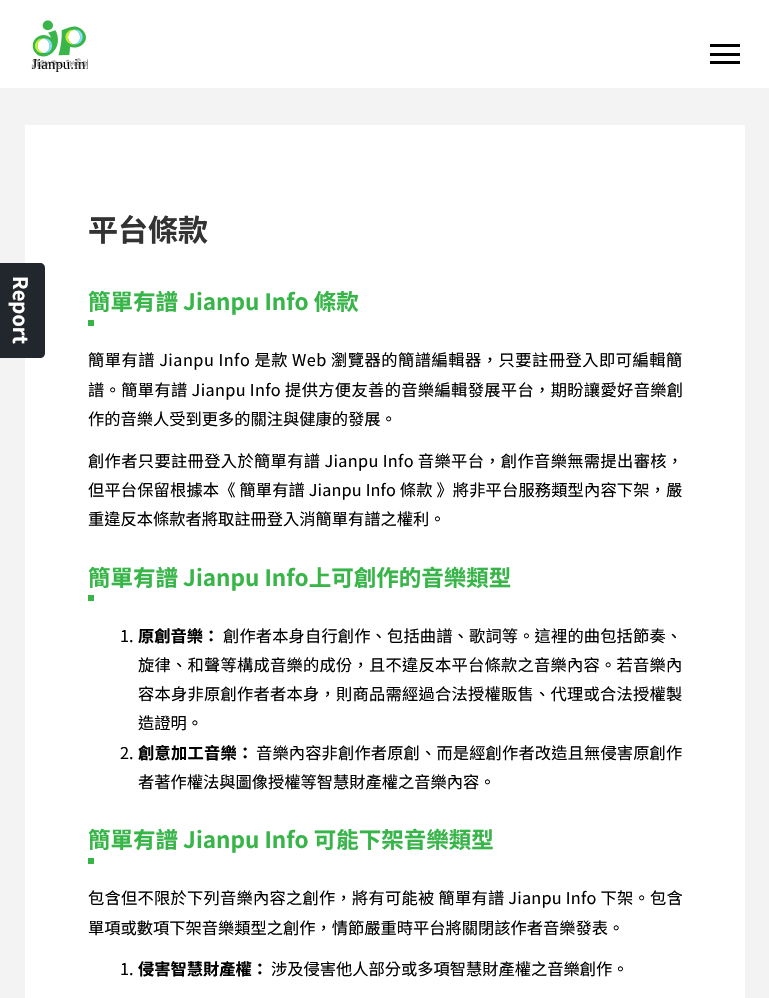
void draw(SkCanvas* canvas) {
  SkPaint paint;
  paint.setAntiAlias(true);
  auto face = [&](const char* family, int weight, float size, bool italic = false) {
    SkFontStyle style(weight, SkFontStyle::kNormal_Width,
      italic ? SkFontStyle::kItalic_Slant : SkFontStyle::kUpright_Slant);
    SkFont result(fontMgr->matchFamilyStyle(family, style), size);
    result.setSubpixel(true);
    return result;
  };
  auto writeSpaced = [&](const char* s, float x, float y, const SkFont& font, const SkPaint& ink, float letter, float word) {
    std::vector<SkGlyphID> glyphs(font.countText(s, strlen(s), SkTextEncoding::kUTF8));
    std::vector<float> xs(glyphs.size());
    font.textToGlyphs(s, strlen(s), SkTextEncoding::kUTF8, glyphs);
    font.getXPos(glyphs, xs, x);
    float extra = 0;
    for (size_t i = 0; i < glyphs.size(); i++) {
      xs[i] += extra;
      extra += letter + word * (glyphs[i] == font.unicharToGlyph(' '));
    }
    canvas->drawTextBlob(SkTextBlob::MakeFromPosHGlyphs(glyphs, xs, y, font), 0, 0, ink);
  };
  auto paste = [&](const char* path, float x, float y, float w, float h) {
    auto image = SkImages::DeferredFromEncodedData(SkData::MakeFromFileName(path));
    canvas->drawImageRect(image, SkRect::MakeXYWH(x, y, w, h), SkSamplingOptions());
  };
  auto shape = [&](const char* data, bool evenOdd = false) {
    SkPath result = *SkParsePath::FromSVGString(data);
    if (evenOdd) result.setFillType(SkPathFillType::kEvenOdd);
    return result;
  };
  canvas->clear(0xffffffff);
  paste("img/1.png", 31, 20, 57, 52);
  {
    const struct { float x, y, w, h; SkColor color; } items[] = {
      {710, 44, 30, 3, 0xff000000},
      {710, 53, 30, 3, 0xff000000},
      {710, 61, 30, 3, 0xff000000},
      {0, 88, 769, 910, 0xfff3f3f3},
      {25, 125, 720, 873, 0xffffffff},
    };
    for (auto [x, y, w, h, color] : items) {
      paint.setColor(color);
      canvas->drawRect(SkRect::MakeXYWH(x, y, w, h), paint);
    }
  }
  paint.setColor(0xff22262d);
  canvas->drawPath(shape("M0 263H40C43 263 45 265 45 268V353C45 356 43 358 40 358H0Z"), paint);
  {
    const struct { float x, y, w, h; SkColor color; } items[] = {
      {88, 320, 6, 6, 0xff38b549},
      {88, 595, 6, 6, 0xff38b549},
      {88, 858, 6, 6, 0xff38b549},
    };
    for (auto [x, y, w, h, color] : items) {
      paint.setColor(color);
      canvas->drawRect(SkRect::MakeXYWH(x, y, w, h), paint);
    }
  }
  auto f0 = face("Noto Sans TC", 700, 20);
  paint.setColor(0xffffffff);
  canvas->save();
  canvas->rotate(90, 13, 276);
  canvas->drawString("Report", 13, 276, f0, paint);
  canvas->restore();
  auto f1 = face("Noto Sans TC", 700, 30);
  paint.setColor(0xff333333);
  canvas->drawString("平台條款", 88, 241, f1, paint);
  auto f2 = face("Noto Sans TC", 700, 22.5f);
  paint.setColor(0xff38b549);
  canvas->drawString("簡單有譜 Jianpu Info 條款", 88, 310, f2, paint);
  auto f3 = face("Noto Sans TC", 400, 16.25f);
  paint.setColor(0xff000000);
  writeSpaced("簡單有譜 Jianpu Info 是款 Web 瀏覽器的簡譜編輯器，只要註冊登入即可編輯簡", 88, 366, f3, paint, 0.5f, 0);
  writeSpaced("譜。簡單有譜 Jianpu Info 提供方便友善的音樂編輯發展平台，期盼讓愛好音樂創", 88, 396, f3, paint, 0.35f, 0);
  canvas->drawString("作的音樂人受到更多的關注與健康的發展。", 88, 425, f3, paint);
  writeSpaced("創作者只要註冊登入於簡單有譜 Jianpu Info 音樂平台，創作音樂無需提出審核，", 88, 467, f3, paint, 0.35f, 0);
  writeSpaced("但平台保留根據本《 簡單有譜 Jianpu Info 條款 》將非平台服務類型內容下架，嚴", 88, 496, f3, paint, 0.15f, 0);
  canvas->drawString("重違反本條款者將取註冊登入消簡單有譜之權利。", 88, 525, f3, paint);
  paint.setColor(0xff38b549);
  canvas->drawString("簡單有譜 Jianpu Info上可創作的音樂類型", 88, 586, f2, paint);
  paint.setColor(0xff000000);
  canvas->drawString("1.", 120, 642, f3, paint);
  auto f4 = face("Noto Sans TC", 700, 16.25f);
  canvas->drawString("原創音樂：", 138, 642, f4, paint);
  writeSpaced("創作者本身自行創作、包括曲譜、歌詞等。這裡的曲包括節奏、", 223, 642, f3, paint, 0.15f, 0);
  writeSpaced("旋律、和聲等構成音樂的成份，且不違反本平台條款之音樂內容。若音樂內", 138, 671, f3, paint, 0.25f, 0);
  writeSpaced("容本身非原創作者者本身，則商品需經過合法授權販售、代理或合法授權製", 138, 700, f3, paint, 0.25f, 0);
  canvas->drawString("造證明。", 138, 729, f3, paint);
  canvas->drawString("2.", 120, 759, f3, paint);
  writeSpaced("創意加工音樂：", 138, 759, f4, paint, 0.25f, 0);
  writeSpaced("音樂內容非創作者原創、而是經創作者改造且無侵害原創作", 256, 759, f3, paint, 0.15f, 0);
  canvas->drawString("者著作權法與圖像授權等智慧財產權之音樂內容。", 138, 788, f3, paint);
  paint.setColor(0xff38b549);
  canvas->drawString("簡單有譜 Jianpu Info 可能下架音樂類型", 88, 848, f2, paint);
  paint.setColor(0xff000000);
  writeSpaced("包含但不限於下列音樂內容之創作，將有可能被 簡單有譜 Jianpu Info 下架。包含", 88, 904, f3, paint, 0.25f, 0);
  canvas->drawString("單項或數項下架音樂類型之創作，情節嚴重時平台將關閉該作者音樂發表。", 88, 934, f3, paint);
  canvas->drawString("1.", 120, 975, f3, paint);
  canvas->drawString("侵害智慧財產權：", 138, 975, f4, paint);
  canvas->drawString("涉及侵害他人部分或多項智慧財產權之音樂創作。", 271, 975, f3, paint);
}
